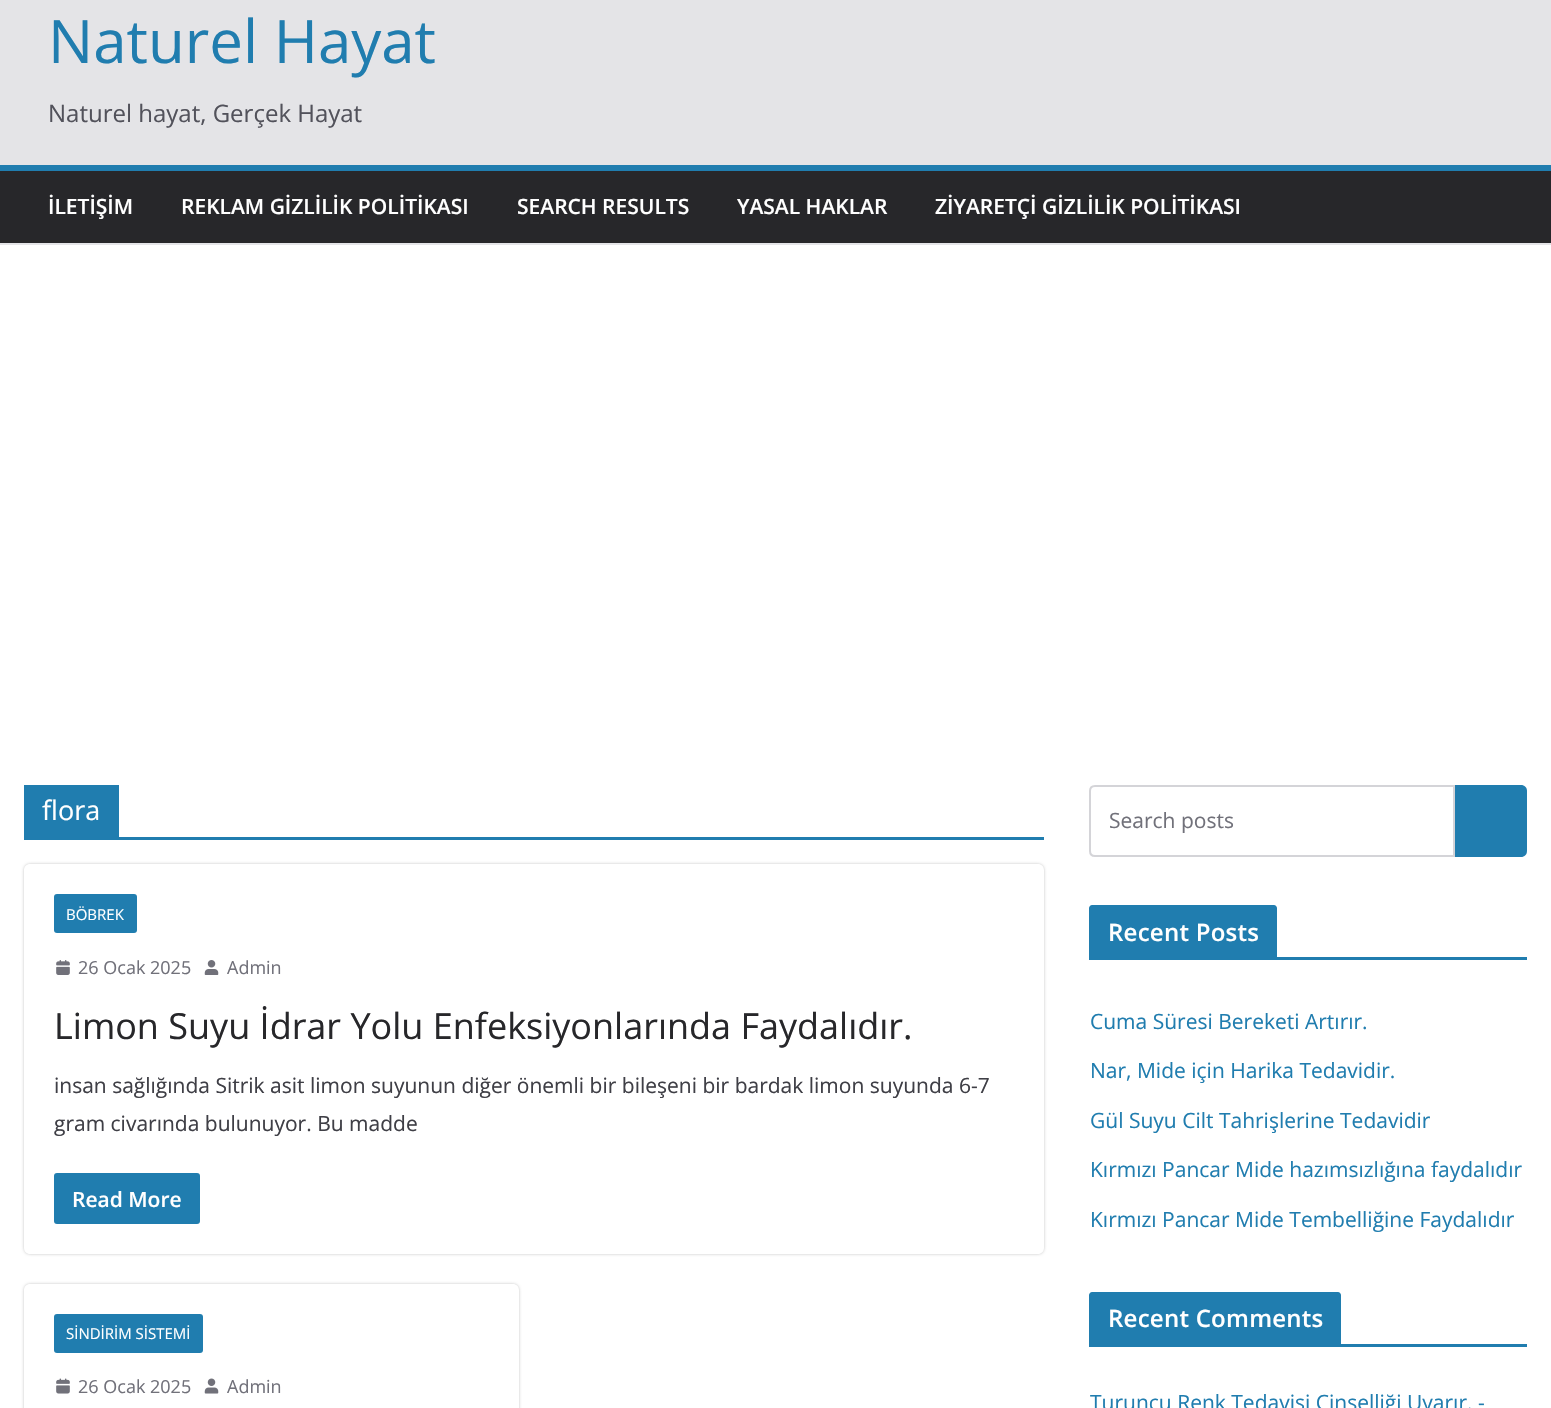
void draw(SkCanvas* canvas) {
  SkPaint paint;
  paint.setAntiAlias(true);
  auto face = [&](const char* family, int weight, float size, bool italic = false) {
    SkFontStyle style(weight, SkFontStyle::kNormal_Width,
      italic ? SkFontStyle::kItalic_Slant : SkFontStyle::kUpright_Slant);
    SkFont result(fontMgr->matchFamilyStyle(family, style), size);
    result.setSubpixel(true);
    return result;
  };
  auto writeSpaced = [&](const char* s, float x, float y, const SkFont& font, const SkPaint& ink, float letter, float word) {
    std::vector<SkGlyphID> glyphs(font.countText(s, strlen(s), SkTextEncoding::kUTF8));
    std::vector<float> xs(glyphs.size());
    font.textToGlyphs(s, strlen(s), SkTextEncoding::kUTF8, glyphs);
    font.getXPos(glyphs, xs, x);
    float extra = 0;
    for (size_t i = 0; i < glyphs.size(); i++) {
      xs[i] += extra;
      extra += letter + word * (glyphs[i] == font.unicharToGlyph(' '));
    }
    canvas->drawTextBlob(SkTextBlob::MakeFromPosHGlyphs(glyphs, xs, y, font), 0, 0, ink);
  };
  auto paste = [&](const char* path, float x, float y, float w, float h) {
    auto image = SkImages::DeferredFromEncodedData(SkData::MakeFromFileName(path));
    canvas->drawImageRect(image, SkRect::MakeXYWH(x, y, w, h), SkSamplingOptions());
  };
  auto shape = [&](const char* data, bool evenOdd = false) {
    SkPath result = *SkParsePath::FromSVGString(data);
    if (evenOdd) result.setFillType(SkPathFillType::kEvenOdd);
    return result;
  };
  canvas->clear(0xffe4e4e7);
  {
    const struct { float x, y, w, h; SkColor color; } items[] = {
      {0, 171, 1551, 72, 0xff27272a},
      {0, 165, 1551, 6, 0xff207daf},
      {0, 245, 1551, 1163, 0xffffffff},
      {24, 837, 1020, 3, 0xff207daf},
      {24, 785, 95, 52, 0xff207daf},
    };
    for (auto [x, y, w, h, color] : items) {
      paint.setColor(color);
      canvas->drawRect(SkRect::MakeXYWH(x, y, w, h), paint);
    }
  }
  canvas->save();
  canvas->clipPath(shape("M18 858H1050V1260H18ZM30 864H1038C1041.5 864 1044 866.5 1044 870V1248C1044 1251.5 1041.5 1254 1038 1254H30C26.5 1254 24 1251.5 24 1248V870C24 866.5 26.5 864 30 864Z", true), true);
  paint.setColor(0x3d000000);
  paint.setMaskFilter(SkMaskFilter::MakeBlur(kNormal_SkBlurStyle, 1.5f));
  canvas->drawRoundRect(SkRect::MakeXYWH(24, 864, 1020, 390), 6, 6, paint);
  paint.setMaskFilter(nullptr);
  canvas->restore();
  paint.setColor(0xff207daf);
  canvas->drawRoundRect(SkRect::MakeXYWH(54, 894, 83, 39), 3, 3, paint);
  paste("img/1.png", 56, 960, 14, 15);
  paste("img/2.png", 204, 960, 15, 15);
  canvas->drawRoundRect(SkRect::MakeXYWH(54, 1173, 146, 51), 3, 3, paint);
  canvas->save();
  canvas->clipPath(shape("M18 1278H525V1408H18ZM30 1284H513C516.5 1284 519 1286.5 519 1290V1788C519 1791.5 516.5 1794 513 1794H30C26.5 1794 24 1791.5 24 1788V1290C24 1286.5 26.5 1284 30 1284Z", true), true);
  paint.setColor(0x3d000000);
  paint.setMaskFilter(SkMaskFilter::MakeBlur(kNormal_SkBlurStyle, 1.5f));
  canvas->drawRoundRect(SkRect::MakeXYWH(24, 1284, 495, 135), 6, 6, paint);
  paint.setMaskFilter(nullptr);
  canvas->restore();
  paint.setColor(0xff207daf);
  canvas->drawRoundRect(SkRect::MakeXYWH(54, 1314, 149, 39), 3, 3, paint);
  paste("img/3.png", 56, 1378, 14, 16);
  paste("img/4.png", 204, 1378, 15, 16);
  paint.setStroke(true);
  paint.setStrokeWidth(2);
  paint.setColor(0xffd4d4d8);
  canvas->drawPath(shape("M1095 786H1454V856H1095C1092 856 1090 854 1090 851V791C1090 788 1092 786 1095 786Z"), paint);
  paint.setStroke(false);
  paint.setColor(0xff207daf);
  canvas->drawPath(shape("M1455 785H1521C1524.5 785 1527 787.5 1527 791V851C1527 854.5 1524.5 857 1521 857H1455Z"), paint);
  canvas->drawRect(SkRect::MakeXYWH(1089, 957, 438, 3), paint);
  canvas->drawPath(shape("M1092 905H1274C1275.5 905 1277 906.5 1277 908V957H1089V908C1089 906.5 1090.5 905 1092 905Z"), paint);
  canvas->drawRect(SkRect::MakeXYWH(1089, 1344, 438, 3), paint);
  canvas->drawPath(shape("M1092 1292H1338C1339.5 1292 1341 1293.5 1341 1295V1344H1089V1295C1089 1293.5 1090.5 1292 1092 1292Z"), paint);
  auto f0 = face("Open Sans", 400, 60);
  canvas->drawString("Naturel Hayat", 48, 63, f0, paint);
  auto f1 = face("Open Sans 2", 400, 24);
  paint.setColor(0xff52525b);
  canvas->drawString("Naturel hayat, Gerçek Hayat", 48, 122, f1, paint);
  auto f2 = face("Open Sans", 600, 21);
  paint.setColor(0xffffffff);
  {
    const struct { const char* s; float x, y; } items[] = {
      {"İLETİŞİM", 48, 214},
      {"REKLAM GİZLİLİK POLİTİKASI", 181, 214},
      {"SEARCH RESULTS", 517, 214},
      {"YASAL HAKLAR", 737, 214},
      {"ZİYARETÇİ GİZLİLİK POLİTİKASI", 935, 214},
    };
    for (auto [s, x, y] : items) {
      canvas->drawString(s, x, y, f2, paint);
    }
  }
  auto f3 = face("Open Sans", 400, 27);
  canvas->drawString("flora", 42, 820, f3, paint);
  auto f4 = face("Open Sans 2", 400, 15);
  canvas->drawString("BÖBREK", 66, 920, f4, paint);
  auto f5 = face("Open Sans 2", 400, 18);
  paint.setColor(0xff71717a);
  canvas->drawString("26 Ocak 2025", 78, 974, f5, paint);
  canvas->drawString("Admin", 227, 974, f5, paint);
  auto f6 = face("Open Sans", 400, 36);
  paint.setColor(0xff27272a);
  canvas->drawString("Limon Suyu İdrar Yolu Enfeksiyonlarında Faydalıdır.", 54, 1039, f6, paint);
  auto f7 = face("Open Sans 2", 400, 21);
  paint.setColor(0xff3f3f46);
  canvas->drawString("insan sağlığında Sitrik asit limon suyunun diğer önemli bir bileşeni bir bardak limon suyunda 6-7", 54, 1093, f7, paint);
  canvas->drawString("gram civarında bulunuyor. Bu madde", 54, 1131, f7, paint);
  paint.setColor(0xffffffff);
  canvas->drawString("Read More", 72, 1207, f2, paint);
  canvas->drawString("SİNDİRİM SİSTEMİ", 66, 1339, f4, paint);
  paint.setColor(0xff71717a);
  canvas->drawString("26 Ocak 2025", 78, 1393, f5, paint);
  canvas->drawString("Admin", 227, 1393, f5, paint);
  canvas->drawString("Search posts", 1109, 828, f7, paint);
  auto f8 = face("Open Sans", 600, 24);
  paint.setColor(0xffffffff);
  writeSpaced("Recent Posts", 1108, 941, f8, paint, 0.25f, 0);
  paint.setColor(0xff207daf);
  {
    const struct { const char* s; float x, y; } items[] = {
      {"Cuma Süresi Bereketi Artırır.", 1090, 1029},
      {"Nar, Mide için Harika Tedavidir.", 1090, 1078},
      {"Gül Suyu Cilt Tahrişlerine Tedavidir", 1090, 1128},
      {"Kırmızı Pancar Mide hazımsızlığına faydalıdır", 1090, 1177},
      {"Kırmızı Pancar Mide Tembelliğine Faydalıdır", 1090, 1227},
    };
    for (auto [s, x, y] : items) {
      canvas->drawString(s, x, y, f7, paint);
    }
  }
  paint.setColor(0xffffffff);
  writeSpaced("Recent Comments", 1108, 1327, f8, paint, 0.25f, 0);
  paint.setColor(0xff207daf);
  canvas->drawString("Turuncu Renk Tedavisi Cinselliği Uyarır. -", 1090, 1410, f7, paint);
}
